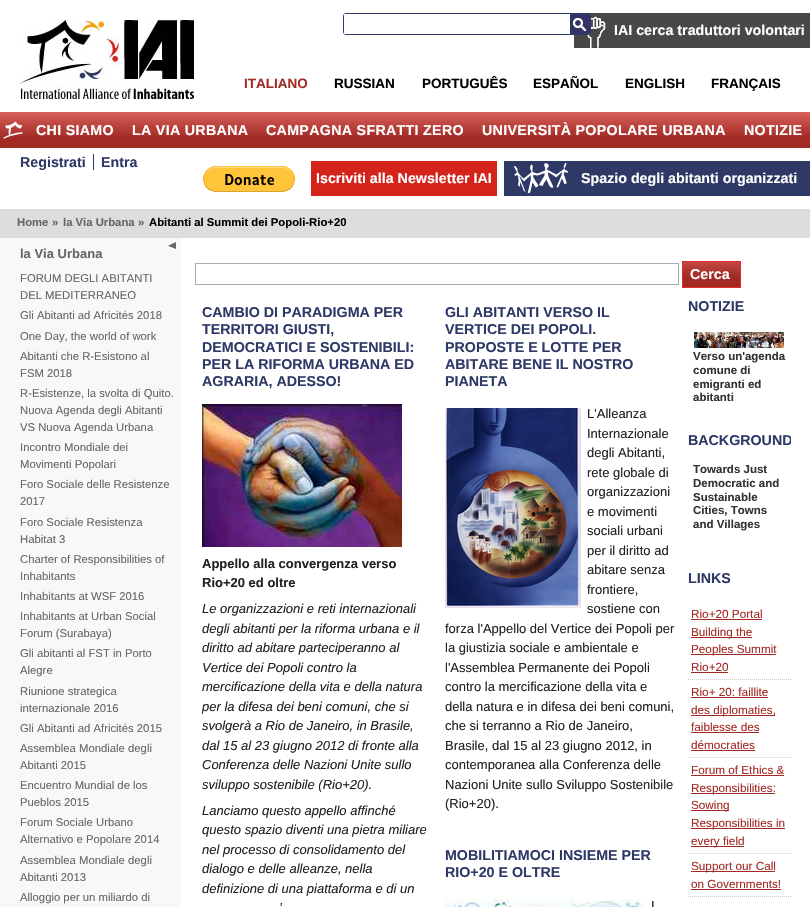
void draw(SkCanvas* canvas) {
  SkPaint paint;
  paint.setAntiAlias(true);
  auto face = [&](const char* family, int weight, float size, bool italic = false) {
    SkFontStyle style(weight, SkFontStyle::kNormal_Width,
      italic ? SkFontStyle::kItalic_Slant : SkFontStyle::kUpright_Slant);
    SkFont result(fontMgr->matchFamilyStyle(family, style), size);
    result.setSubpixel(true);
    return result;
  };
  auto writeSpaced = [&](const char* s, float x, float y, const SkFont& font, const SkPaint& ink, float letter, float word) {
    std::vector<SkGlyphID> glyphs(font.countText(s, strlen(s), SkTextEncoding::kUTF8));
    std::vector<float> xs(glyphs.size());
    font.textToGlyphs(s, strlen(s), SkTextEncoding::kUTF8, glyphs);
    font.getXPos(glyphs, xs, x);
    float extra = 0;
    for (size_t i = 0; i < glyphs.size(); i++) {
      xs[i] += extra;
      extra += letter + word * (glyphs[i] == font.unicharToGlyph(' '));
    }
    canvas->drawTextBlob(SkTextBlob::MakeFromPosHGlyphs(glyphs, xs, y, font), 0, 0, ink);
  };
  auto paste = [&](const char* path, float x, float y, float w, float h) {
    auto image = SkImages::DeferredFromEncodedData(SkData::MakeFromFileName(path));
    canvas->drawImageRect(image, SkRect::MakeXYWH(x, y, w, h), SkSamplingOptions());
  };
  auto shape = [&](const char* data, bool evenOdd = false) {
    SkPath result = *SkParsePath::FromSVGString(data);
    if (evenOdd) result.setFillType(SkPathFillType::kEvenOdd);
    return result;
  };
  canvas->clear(0xffffffff);
  paste("img/1.png", 20, 20, 174, 79);
  paint.setColor(0xff484848);
  canvas->drawRect(SkRect::MakeXYWH(574, 13, 236, 35), paint);
  paste("img/3.png", 587, 16, 19, 32);
  paint.setStroke(true);
  paint.setStrokeWidth(1);
  paint.setColor(0xff2e3966);
  canvas->drawRoundRect(SkRect::MakeXYWH(343.5f, 13.5f, 247, 21), 2.5f, 2.5f, paint);
  paint.setStroke(false);
  paint.setColor(0xffffffff);
  canvas->drawRect(SkRect::MakeXYWH(344, 14, 2, 20), paint);
  paste("img/2.png", 570, 14, 20, 20);
  paint.setColor(0xffd45e59);
  canvas->drawRect(SkRect::MakeXYWH(0, 112, 810, 3), paint);
  paste("img/4.png", 0, 115, 810, 33);
  paste("img/5.png", 3, 121, 20, 18);
  paint.setColor(0xff2e3966);
  canvas->drawRect(SkRect::MakeXYWH(93, 154, 1, 16), paint);
  paste("img/6.png", 203, 166, 92, 26);
  paint.setColor(0xffd4231b);
  canvas->drawRect(SkRect::MakeXYWH(311, 161, 186, 35), paint);
  paint.setColor(0xff2e3966);
  canvas->drawRect(SkRect::MakeXYWH(504, 161, 306, 35), paint);
  paste("img/7.png", 514, 163, 54, 30);
  paint.setColor(0xffdddddd);
  canvas->drawRect(SkRect::MakeXYWH(0, 209, 810, 29), paint);
  paint.setColor(0xfff8f8f8);
  canvas->drawRect(SkRect::MakeXYWH(0, 238, 181, 669), paint);
  paste("img/8.png", 168, 242, 8, 7);
  paint.setStroke(true);
  paint.setColor(0xffa5acb2);
  canvas->drawRect(SkRect::MakeXYWH(195.5f, 263.5f, 483, 21), paint);
  paste("img/9.png", 683, 262, 57, 25);
  paint.setColor(0xffe32b2b);
  canvas->drawRect(SkRect::MakeXYWH(682.5f, 261.5f, 58, 26), paint);
  paste("img/10.png", 202, 404, 200, 143);
  paste("img/11.png", 445, 408, 136, 200);
  paste("img/12.png", 445, 899, 200, 8);
  paste("img/13.png", 694, 332, 90, 16);
  paint.setColor(0xffcccccc);
  paint.setPathEffect(SkDashPathEffect::Make({{1, 1}}, 0));
  canvas->drawPath(shape("M688 679.5H791"), paint);
  paint.setPathEffect(nullptr);
  paint.setStroke(false);
  {
    const struct { float x, y, w, h; SkColor color; } items[] = {
      {691, 619, 71, 1, 0xffa12a24},
      {691, 637, 61, 1, 0xffa12a24},
      {691, 654, 85, 1, 0xffa12a24},
      {691, 672, 37, 1, 0xffa12a24},
    };
    for (auto [x, y, w, h, color] : items) {
      paint.setColor(color);
      canvas->drawRect(SkRect::MakeXYWH(x, y, w, h), paint);
    }
  }
  paint.setStroke(true);
  paint.setColor(0xffcccccc);
  paint.setPathEffect(SkDashPathEffect::Make({{1, 1}}, 0));
  canvas->drawPath(shape("M688 757.5H791"), paint);
  paint.setPathEffect(nullptr);
  paint.setStroke(false);
  {
    const struct { float x, y, w, h; SkColor color; } items[] = {
      {691, 697, 77, 1, 0xffa12a24},
      {691, 715, 84, 1, 0xffa12a24},
      {691, 732, 68, 1, 0xffa12a24},
      {691, 750, 64, 1, 0xffa12a24},
    };
    for (auto [x, y, w, h, color] : items) {
      paint.setColor(color);
      canvas->drawRect(SkRect::MakeXYWH(x, y, w, h), paint);
    }
  }
  paint.setStroke(true);
  paint.setColor(0xffcccccc);
  paint.setPathEffect(SkDashPathEffect::Make({{1, 1}}, 0));
  canvas->drawPath(shape("M688 853.5H791"), paint);
  paint.setPathEffect(nullptr);
  paint.setStroke(false);
  {
    const struct { float x, y, w, h; SkColor color; } items[] = {
      {691, 775, 93, 1, 0xffa12a24},
      {691, 793, 84, 1, 0xffa12a24},
      {691, 810, 38, 1, 0xffa12a24},
      {691, 828, 94, 1, 0xffa12a24},
      {691, 846, 53, 1, 0xffa12a24},
    };
    for (auto [x, y, w, h, color] : items) {
      paint.setColor(color);
      canvas->drawRect(SkRect::MakeXYWH(x, y, w, h), paint);
    }
  }
  paint.setStroke(true);
  paint.setColor(0xffcccccc);
  paint.setPathEffect(SkDashPathEffect::Make({{1, 1}}, 0));
  canvas->drawPath(shape("M688 896.5H791"), paint);
  paint.setPathEffect(nullptr);
  paint.setStroke(false);
  paint.setColor(0xffa12a24);
  canvas->drawRect(SkRect::MakeXYWH(691, 871, 84, 1), paint);
  canvas->drawRect(SkRect::MakeXYWH(691, 889, 90, 1), paint);
  auto f0 = face("Liberation Sans", 700, 14.25f);
  paint.setColor(0xffffffff);
  canvas->drawString("IAI cerca traduttori volontari", 614, 35, f0, paint);
  auto f1 = face("Liberation Sans", 700, 13.5f);
  paint.setColor(0xffa22a24);
  canvas->drawString("ITALIANO", 244, 88, f1, paint);
  paint.setColor(0xff000000);
  {
    const struct { const char* s; float x, y; } items[] = {
      {"RUSSIAN", 334, 88},
      {"PORTUGUÊS", 422, 88},
      {"ESPAÑOL", 533, 88},
      {"ENGLISH", 625, 88},
      {"FRANÇAIS", 711, 88},
    };
    for (auto [s, x, y] : items) {
      canvas->drawString(s, x, y, f1, paint);
    }
  }
  paint.setColor(0xffffffff);
  {
    const struct { const char* s; float x, y; } items[] = {
      {"CHI SIAMO", 36, 135},
      {"LA VIA URBANA", 132, 135},
      {"CAMPAGNA SFRATTI ZERO", 266, 135},
      {"UNIVERSITÀ POPOLARE URBANA", 482, 135},
      {"NOTIZIE", 744, 135},
    };
    for (auto [s, x, y] : items) {
      writeSpaced(s, x, y, f0, paint, 0.3f, 0);
    }
  }
  paint.setColor(0xff2e3966);
  canvas->drawString("Registrati", 20, 167, f0, paint);
  canvas->drawString("Entra", 101, 167, f0, paint);
  paint.setColor(0xffffffff);
  canvas->drawString("Iscriviti alla Newsletter IAI", 316, 183, f0, paint);
  canvas->drawString("Spazio degli abitanti organizzati", 581, 183, f0, paint);
  auto f2 = face("Liberation Sans", 700, 11.3f);
  paint.setColor(0xff666666);
  {
    const struct { const char* s; float x, y; } items[] = {
      {"Home", 17, 226},
      {"»", 52, 226},
      {"la Via Urbana", 63, 226},
      {"»", 138, 226},
    };
    for (auto [s, x, y] : items) {
      canvas->drawString(s, x, y, f2, paint);
    }
  }
  paint.setColor(0xff000000);
  canvas->drawString("Abitanti al Summit dei Popoli-Rio+20", 149, 226, f2, paint);
  auto f3 = face("Liberation Sans", 700, 13);
  paint.setColor(0xff666666);
  canvas->drawString("la Via Urbana", 20, 258, f3, paint);
  auto f4 = face("Liberation Sans", 400, 11.3f);
  {
    const struct { const char* s; float x, y; } items[] = {
      {"FORUM DEGLI ABITANTI", 20, 282},
      {"DEL MEDITERRANEO", 20, 299},
      {"Gli Abitanti ad Africités 2018", 20, 319},
      {"One Day, the world of work", 20, 340},
      {"Abitanti che R-Esistono al", 20, 360},
      {"FSM 2018", 20, 377},
      {"R-Esistenze, la svolta di Quito.", 20, 397},
      {"Nuova Agenda degli Abitanti", 20, 414},
      {"VS Nuova Agenda Urbana", 20, 431},
      {"Incontro Mondiale dei", 20, 451},
      {"Movimenti Popolari", 20, 468},
      {"Foro Sociale delle Resistenze", 20, 488},
      {"2017", 20, 505},
      {"Foro Sociale Resistenza", 20, 526},
      {"Habitat 3", 20, 543},
      {"Charter of Responsibilities of", 20, 563},
      {"Inhabitants", 20, 580},
      {"Inhabitants at WSF 2016", 20, 600},
      {"Inhabitants at Urban Social", 20, 620},
      {"Forum (Surabaya)", 20, 637},
      {"Gli abitanti al FST in Porto", 20, 657},
      {"Alegre", 20, 674},
      {"Riunione strategica", 20, 695},
      {"internazionale 2016", 20, 712},
      {"Gli Abitanti ad Africités 2015", 20, 732},
      {"Assemblea Mondiale degli", 20, 752},
      {"Abitanti 2015", 20, 769},
      {"Encuentro Mundial de los", 20, 789},
      {"Pueblos 2015", 20, 806},
      {"Forum Sociale Urbano", 20, 826},
      {"Alternativo e Popolare 2014", 20, 843},
      {"Assemblea Mondiale degli", 20, 864},
      {"Abitanti 2013", 20, 881},
      {"Alloggio per un miliardo di", 20, 901},
    };
    for (auto [s, x, y] : items) {
      canvas->drawString(s, x, y, f4, paint);
    }
  }
  paint.setColor(0xffffffff);
  canvas->drawString("Cerca", 690, 279, f0, paint);
  paint.setColor(0xff2e3966);
  {
    const struct { const char* s; float x, y; } items[] = {
      {"CAMBIO DI PARADIGMA PER", 202, 317},
      {"TERRITORI GIUSTI,", 202, 334},
      {"DEMOCRATICI E SOSTENIBILI:", 202, 352},
      {"PER LA RIFORMA URBANA ED", 202, 369},
      {"AGRARIA, ADESSO!", 202, 386},
    };
    for (auto [s, x, y] : items) {
      canvas->drawString(s, x, y, f0, paint);
    }
  }
  paint.setColor(0xff222222);
  canvas->drawString("Appello alla convergenza verso", 202, 568, f3, paint);
  canvas->drawString("Rio+20 ed oltre", 202, 587, f3, paint);
  auto f5 = face("Liberation Sans", 400, 13, true);
  {
    const struct { const char* s; float x, y; } items[] = {
      {"Le organizzazioni e reti internazionali", 202, 613},
      {"degli abitanti per la riforma urbana e il", 202, 633},
      {"diritto ad abitare parteciperanno al", 202, 652},
      {"Vertice dei Popoli contro la", 202, 672},
      {"mercificazione della vita e della natura", 202, 691},
      {"per la difesa dei beni comuni, che si", 202, 711},
      {"svolgerà a Rio de Janeiro, in Brasile,", 202, 730},
      {"dal 15 al 23 giugno 2012 di fronte alla", 202, 750},
      {"Conferenza delle Nazioni Unite sullo", 202, 769},
      {"sviluppo sostenibile (Rio+20).", 202, 789},
      {"Lanciamo questo appello affinché", 202, 815},
      {"questo spazio diventi una pietra miliare", 202, 834},
      {"nel processo di consolidamento del", 202, 854},
      {"dialogo e delle alleanze, nella", 202, 873},
      {"definizione di una piattaforma e di un", 202, 893},
      {"’", 279, 912},
    };
    for (auto [s, x, y] : items) {
      canvas->drawString(s, x, y, f5, paint);
    }
  }
  paint.setColor(0xff2e3966);
  {
    const struct { const char* s; float x, y; } items[] = {
      {"GLI ABITANTI VERSO IL", 445, 317},
      {"VERTICE DEI POPOLI.", 445, 334},
      {"PROPOSTE E LOTTE PER", 445, 352},
      {"ABITARE BENE IL NOSTRO", 445, 369},
      {"PIANETA", 445, 386},
    };
    for (auto [s, x, y] : items) {
      canvas->drawString(s, x, y, f0, paint);
    }
  }
  auto f6 = face("Liberation Sans", 400, 13);
  paint.setColor(0xff222222);
  {
    const struct { const char* s; float x, y; } items[] = {
      {"L'Alleanza", 587, 418},
      {"Internazionale", 587, 438},
      {"degli Abitanti,", 587, 457},
      {"rete globale di", 587, 477},
      {"organizzazioni", 587, 496},
      {"e movimenti", 587, 516},
      {"sociali urbani", 587, 535},
      {"per il diritto ad", 587, 555},
      {"abitare senza", 587, 574},
      {"frontiere,", 587, 594},
      {"sostiene con", 587, 613},
      {"forza l'Appello del Vertice dei Popoli per", 445, 633},
      {"la giustizia sociale e ambientale e", 445, 652},
      {"l'Assemblea Permanente dei Popoli", 445, 672},
      {"contro la mercificazione della vita e", 445, 691},
      {"della natura e in difesa dei beni comuni,", 445, 711},
      {"che si terranno a Rio de Janeiro,", 445, 730},
      {"Brasile, dal 15 al 23 giugno 2012, in", 445, 750},
      {"contemporanea alla Conferenza delle", 445, 769},
      {"Nazioni Unite sullo Sviluppo Sostenibile", 445, 789},
      {"(Rio+20).", 445, 808},
    };
    for (auto [s, x, y] : items) {
      canvas->drawString(s, x, y, f6, paint);
    }
  }
  paint.setColor(0xff2e3966);
  canvas->drawString("MOBILITIAMOCI INSIEME PER", 445, 860, f0, paint);
  canvas->drawString("RIO+20 E OLTRE", 445, 877, f0, paint);
  paint.setColor(0xff222222);
  canvas->drawString("I", 651, 910, f6, paint);
  paint.setColor(0xff2e3966);
  canvas->drawString("NOTIZIE", 688, 311, f0, paint);
  auto f7 = face("Liberation Sans", 700, 11.5f);
  paint.setColor(0xff333333);
  {
    const struct { const char* s; float x, y; } items[] = {
      {"Verso un'agenda", 693, 360},
      {"comune di", 693, 374},
      {"emigranti ed", 693, 388},
      {"abitanti", 693, 401},
    };
    for (auto [s, x, y] : items) {
      canvas->drawString(s, x, y, f7, paint);
    }
  }
  canvas->save();
  canvas->clipRect(SkRect::MakeXYWH(688, 432, 103, 17));
  paint.setColor(0xff2e3966);
  canvas->drawString("BACKGROUND", 688, 445, f0, paint);
  canvas->restore();
  paint.setColor(0xff333333);
  {
    const struct { const char* s; float x, y; } items[] = {
      {"Towards Just", 693, 473},
      {"Democratic and", 693, 487},
      {"Sustainable", 693, 501},
      {"Cities, Towns", 693, 514},
      {"and Villages", 693, 528},
    };
    for (auto [s, x, y] : items) {
      canvas->drawString(s, x, y, f7, paint);
    }
  }
  paint.setColor(0xff2e3966);
  canvas->drawString("LINKS", 688, 583, f0, paint);
  auto f8 = face("Liberation Sans", 400, 11.75f);
  paint.setColor(0xffa22a24);
  {
    const struct { const char* s; float x, y; } items[] = {
      {"Rio+20 Portal", 691, 618},
      {"Building the", 691, 636},
      {"Peoples Summit", 691, 653},
      {"Rio+20", 691, 671},
      {"Rio+ 20: faillite", 691, 696},
      {"des diplomaties,", 691, 714},
      {"faiblesse des", 691, 731},
      {"démocraties", 691, 749},
      {"Forum of Ethics &", 691, 774},
      {"Responsibilities:", 691, 792},
      {"Sowing", 691, 809},
      {"Responsibilities in", 691, 827},
      {"every field", 691, 845},
      {"Support our Call", 691, 870},
      {"on Governments!", 691, 888},
    };
    for (auto [s, x, y] : items) {
      canvas->drawString(s, x, y, f8, paint);
    }
  }
}
